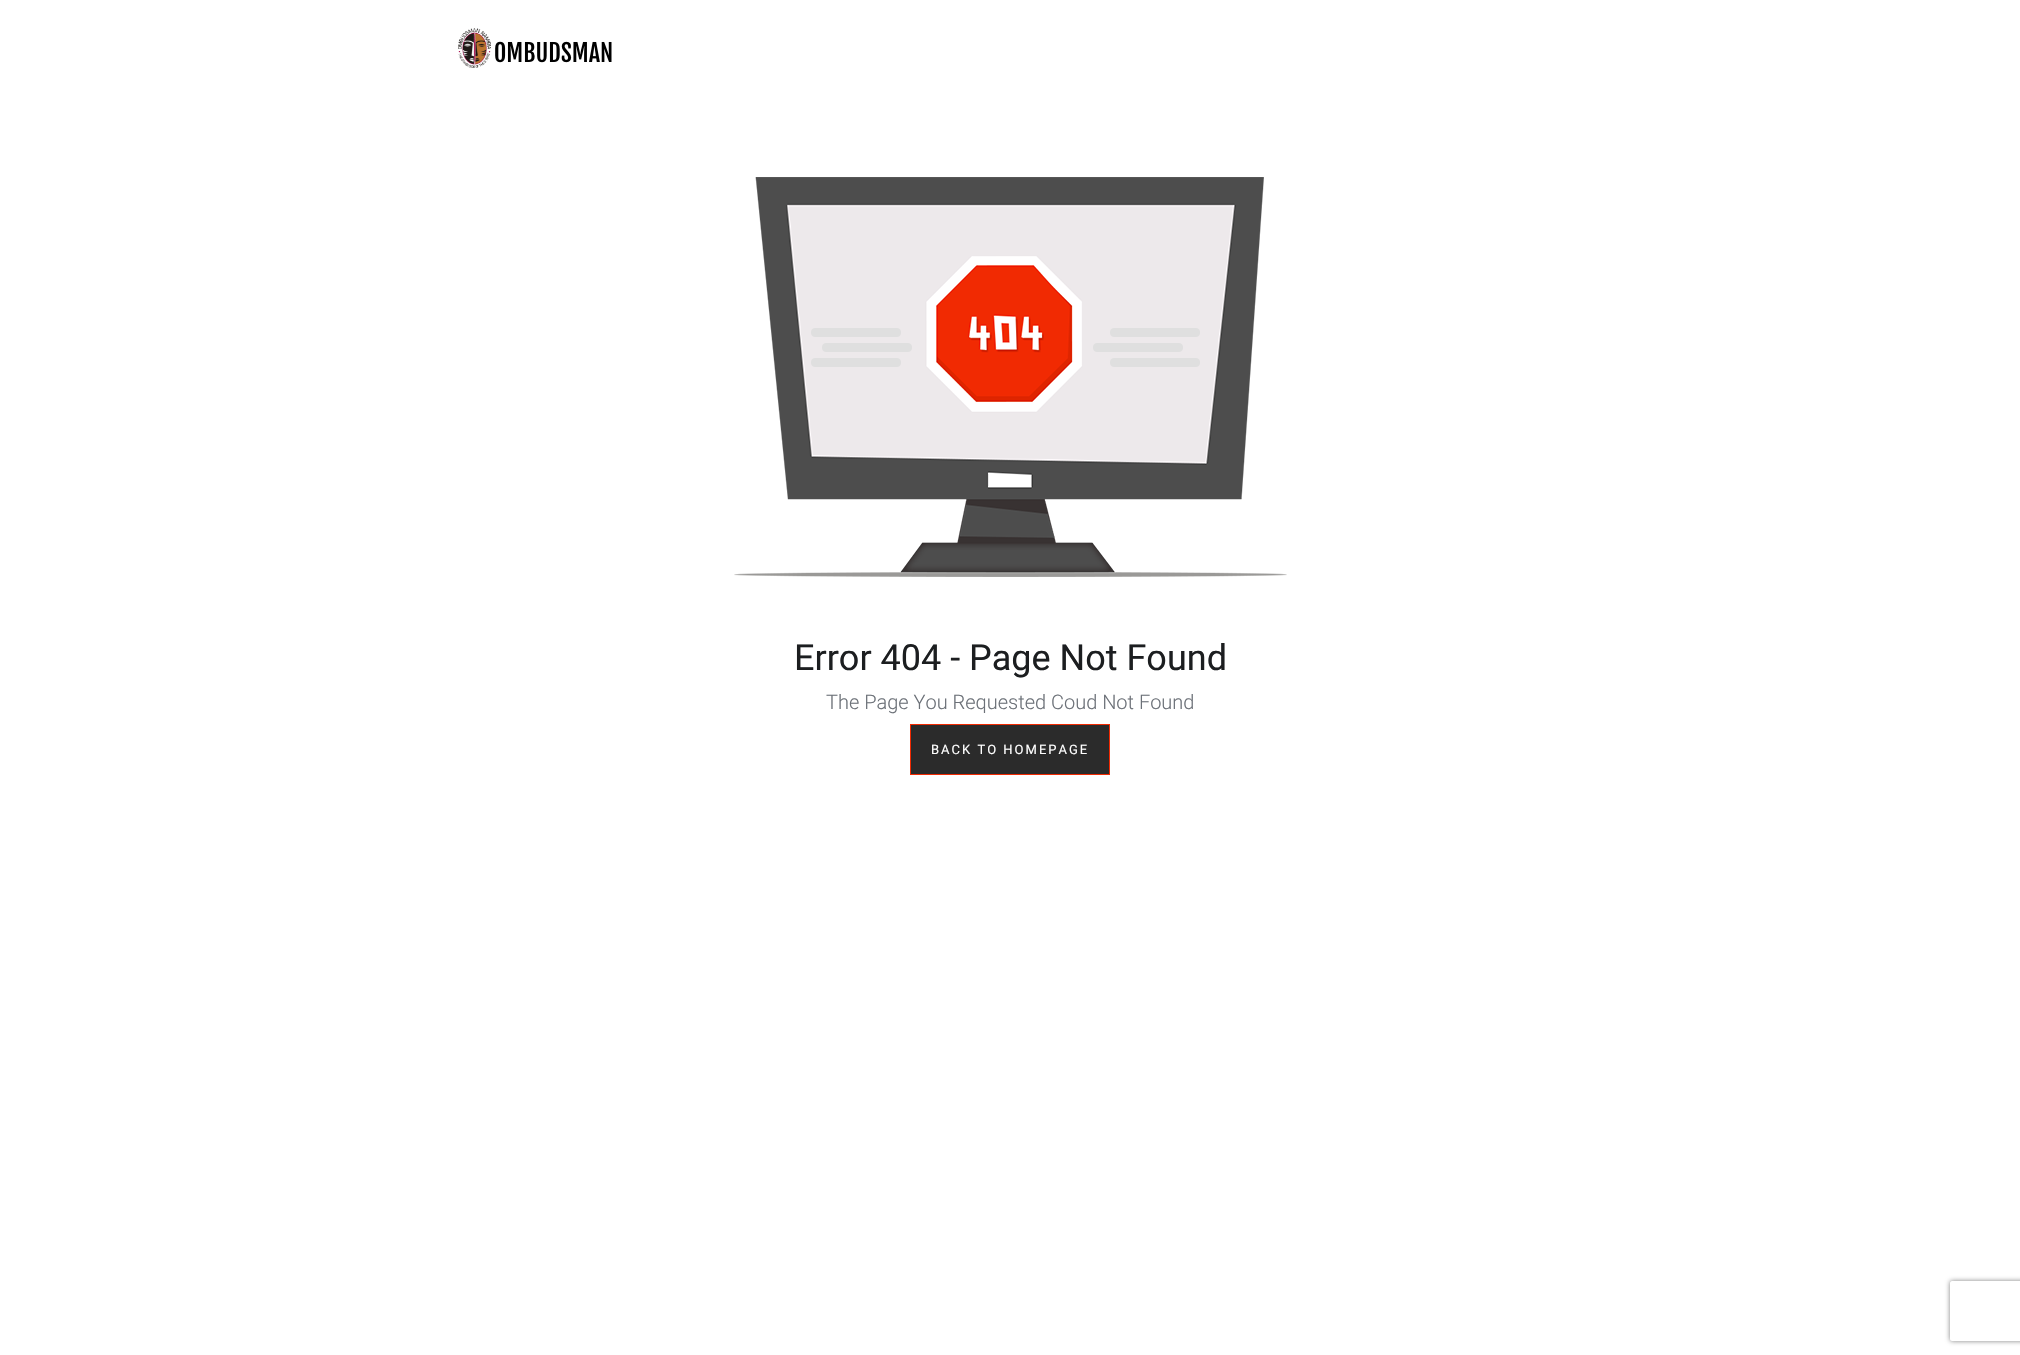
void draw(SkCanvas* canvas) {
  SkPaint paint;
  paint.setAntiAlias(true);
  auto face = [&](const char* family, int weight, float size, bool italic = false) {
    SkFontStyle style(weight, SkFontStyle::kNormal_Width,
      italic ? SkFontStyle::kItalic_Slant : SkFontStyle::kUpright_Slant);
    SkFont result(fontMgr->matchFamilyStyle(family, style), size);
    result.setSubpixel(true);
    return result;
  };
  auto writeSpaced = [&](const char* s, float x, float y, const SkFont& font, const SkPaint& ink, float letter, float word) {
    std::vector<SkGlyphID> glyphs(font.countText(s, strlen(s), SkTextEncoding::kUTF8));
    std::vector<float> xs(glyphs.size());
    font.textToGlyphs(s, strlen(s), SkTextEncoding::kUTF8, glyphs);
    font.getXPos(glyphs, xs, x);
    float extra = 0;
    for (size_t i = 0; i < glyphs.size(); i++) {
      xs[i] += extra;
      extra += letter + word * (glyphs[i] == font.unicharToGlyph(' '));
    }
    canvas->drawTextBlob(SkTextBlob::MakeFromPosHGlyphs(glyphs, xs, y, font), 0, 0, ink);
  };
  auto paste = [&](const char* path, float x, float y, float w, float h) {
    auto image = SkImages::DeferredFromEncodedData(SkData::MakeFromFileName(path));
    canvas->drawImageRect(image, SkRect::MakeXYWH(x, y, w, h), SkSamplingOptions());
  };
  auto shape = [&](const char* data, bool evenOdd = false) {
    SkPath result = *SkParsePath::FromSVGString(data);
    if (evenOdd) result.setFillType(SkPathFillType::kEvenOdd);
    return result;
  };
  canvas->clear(0xffffffff);
  paste("img/1.png", 458, 28, 154, 40);
  paste("img/2.png", 734, 177, 553, 400);
  paint.setColor(0xff2b2b2b);
  canvas->drawRect(SkRect::MakeXYWH(910.5f, 724.5f, 199, 50), paint);
  paint.setStroke(true);
  paint.setStrokeWidth(1);
  paint.setColor(0xfff12a02);
  canvas->drawRect(SkRect::MakeXYWH(910.5f, 724.5f, 199, 50), paint);
  canvas->save();
  canvas->clipPath(shape("M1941 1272H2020V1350H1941ZM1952 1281H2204C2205 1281 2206 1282 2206 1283V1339C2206 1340 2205 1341 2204 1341H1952C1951 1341 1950 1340 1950 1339V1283C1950 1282 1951 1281 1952 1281Z", true), true);
  paint.setStroke(false);
  paint.setColor(0xff808080);
  paint.setMaskFilter(SkMaskFilter::MakeBlur(kNormal_SkBlurStyle, 2.5f));
  canvas->drawRoundRect(SkRect::MakeXYWH(1950, 1281, 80, 60), 2, 2, paint);
  paint.setMaskFilter(nullptr);
  canvas->restore();
  auto f0 = face("Roboto", 400, 36);
  paint.setColor(0xff1c1e20);
  canvas->drawString("Error 404 - Page Not Found", 794, 670, f0, paint);
  auto f1 = face("Roboto", 300, 20);
  paint.setColor(0xff6c7178);
  canvas->drawString("The Page You Requested Coud Not Found", 826, 709, f1, paint);
  auto f2 = face("Roboto", 400, 13);
  paint.setColor(0xffffffff);
  writeSpaced("BACK TO HOMEPAGE", 931, 754, f2, paint, 2, 0);
}
